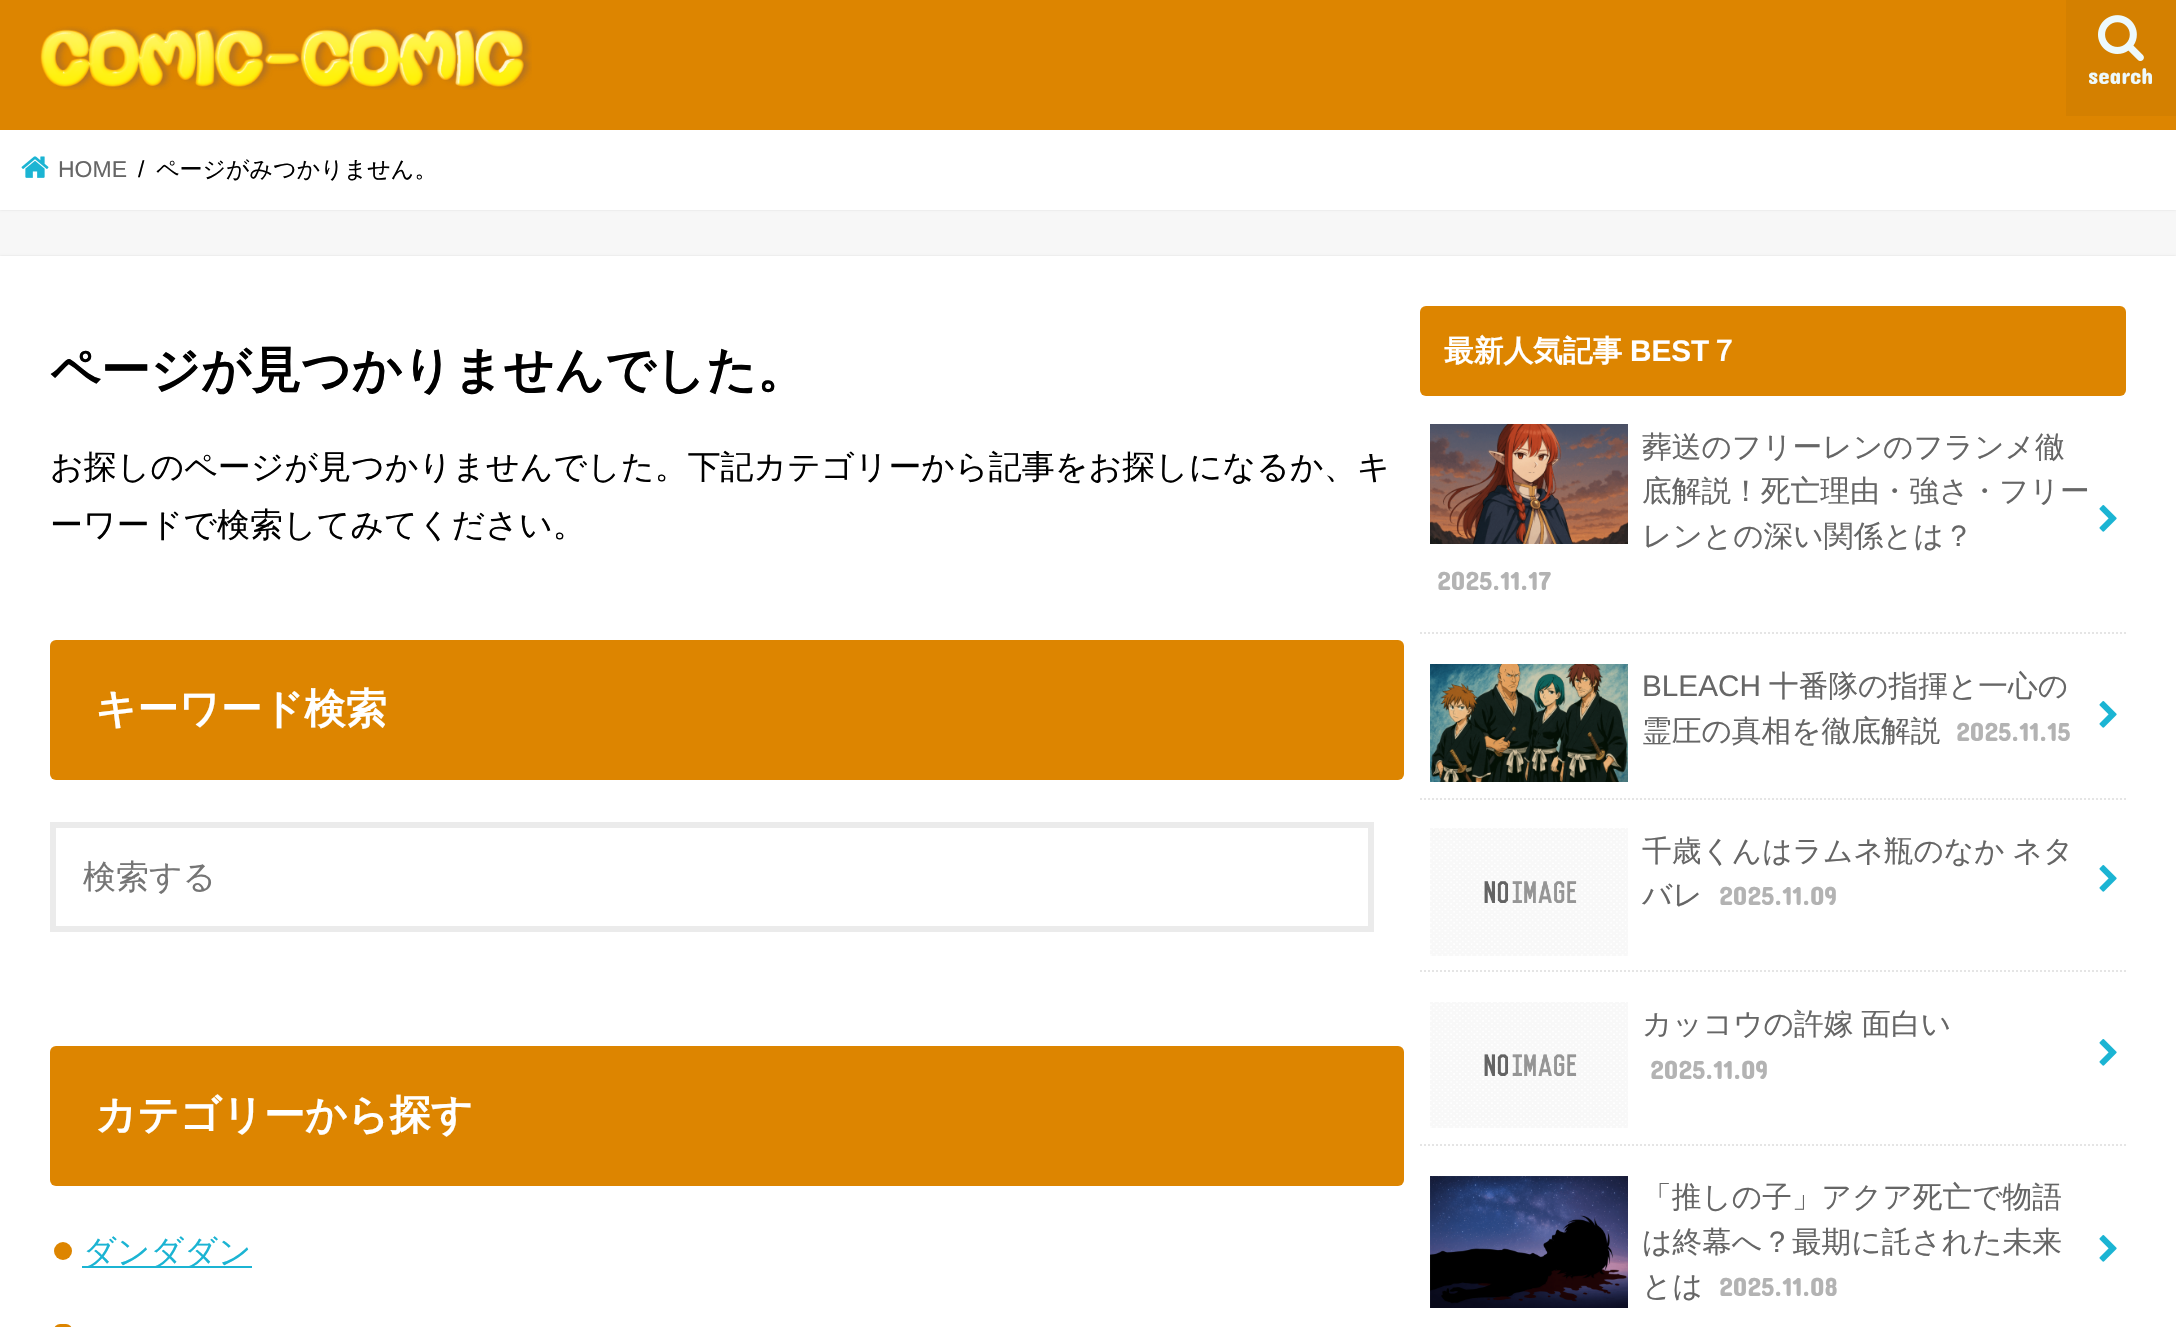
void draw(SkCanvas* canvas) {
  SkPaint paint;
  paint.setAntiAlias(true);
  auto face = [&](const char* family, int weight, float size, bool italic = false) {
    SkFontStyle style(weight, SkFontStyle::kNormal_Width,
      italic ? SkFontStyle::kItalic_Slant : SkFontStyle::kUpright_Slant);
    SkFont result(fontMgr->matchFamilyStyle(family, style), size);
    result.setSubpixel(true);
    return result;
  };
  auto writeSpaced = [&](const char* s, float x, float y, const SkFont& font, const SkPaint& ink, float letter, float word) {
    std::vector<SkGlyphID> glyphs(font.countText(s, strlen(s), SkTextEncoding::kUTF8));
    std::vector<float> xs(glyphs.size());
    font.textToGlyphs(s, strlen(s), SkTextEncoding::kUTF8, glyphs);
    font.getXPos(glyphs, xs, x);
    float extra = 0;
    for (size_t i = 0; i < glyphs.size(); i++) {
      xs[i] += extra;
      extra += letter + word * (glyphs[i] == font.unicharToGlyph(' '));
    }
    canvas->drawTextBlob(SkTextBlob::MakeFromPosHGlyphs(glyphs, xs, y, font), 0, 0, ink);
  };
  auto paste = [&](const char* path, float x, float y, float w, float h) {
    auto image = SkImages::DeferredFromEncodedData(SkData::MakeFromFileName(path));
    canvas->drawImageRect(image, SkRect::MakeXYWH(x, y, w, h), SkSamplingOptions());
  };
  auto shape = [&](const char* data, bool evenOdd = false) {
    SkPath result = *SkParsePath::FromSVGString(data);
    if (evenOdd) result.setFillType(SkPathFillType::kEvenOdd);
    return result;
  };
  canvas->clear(0xfff7f7f7);
  paint.setColor(0xffdddddd);
  paint.setMaskFilter(SkMaskFilter::MakeBlur(kNormal_SkBlurStyle, 1));
  canvas->drawRect(SkRect::MakeXYWH(0, 130, 2176, 80), paint);
  paint.setMaskFilter(nullptr);
  paint.setColor(0xffdd8500);
  canvas->drawRect(SkRect::MakeXYWH(0, 0, 2176, 130), paint);
  paste("img/1.png", 40, 26, 492, 64);
  paint.setColor(0xffd48000);
  canvas->drawRect(SkRect::MakeXYWH(2066, 0, 110, 116), paint);
  paste("img/2.png", 2098, 15, 46, 46);
  paint.setColor(0xffffffff);
  canvas->drawRect(SkRect::MakeXYWH(0, 130, 2176, 80), paint);
  paste("img/3.png", 21, 156, 28, 22);
  paint.setColor(0xffdddddd);
  paint.setMaskFilter(SkMaskFilter::MakeBlur(kNormal_SkBlurStyle, 1));
  canvas->drawRect(SkRect::MakeXYWH(0, 256, 2176, 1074), paint);
  paint.setMaskFilter(nullptr);
  paint.setColor(0xffffffff);
  canvas->drawRect(SkRect::MakeXYWH(0, 256, 2176, 1071), paint);
  paint.setColor(0xffdd8500);
  canvas->drawRoundRect(SkRect::MakeXYWH(50, 640, 1354, 140), 6, 6, paint);
  paint.setStroke(true);
  paint.setStrokeWidth(6);
  paint.setColor(0xffebebeb);
  canvas->drawPath(shape("M53 825H1371V929H53Z"), paint);
  paint.setStroke(false);
  paint.setColor(0xffdd8500);
  canvas->drawRoundRect(SkRect::MakeXYWH(50, 1046, 1354, 140), 6, 6, paint);
  canvas->drawCircle(63, 1251, 9, paint);
  paint.setColor(0xff1bb4d3);
  canvas->drawRect(SkRect::MakeXYWH(82, 1266, 170, 2), paint);
  paint.setColor(0xffdd8500);
  canvas->drawRoundRect(SkRect::MakeXYWH(54, 1324, 18, 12), 9, 9, paint);
  canvas->drawRoundRect(SkRect::MakeXYWH(1420, 306, 706, 90), 6, 6, paint);
  paint.setStroke(true);
  paint.setStrokeWidth(2);
  paint.setColor(0xffe5e5e5);
  paint.setPathEffect(SkDashPathEffect::Make({{2, 2}}, 0));
  canvas->drawPath(shape("M1420 633H2126"), paint);
  paint.setPathEffect(nullptr);
  paste("img/4.png", 1430, 424, 198, 120);
  paste("img/5.png", 2099, 505, 18, 27);
  paint.setPathEffect(SkDashPathEffect::Make({{2, 2}}, 0));
  canvas->drawPath(shape("M1420 799H2126"), paint);
  paint.setPathEffect(nullptr);
  paste("img/6.png", 1430, 664, 198, 118);
  paste("img/5.png", 2099, 701, 18, 27);
  paint.setPathEffect(SkDashPathEffect::Make({{2, 2}}, 0));
  canvas->drawPath(shape("M1420 971H2126"), paint);
  paint.setPathEffect(nullptr);
  paste("img/7.png", 1430, 828, 198, 128);
  paste("img/5.png", 2099, 865, 18, 27);
  paint.setPathEffect(SkDashPathEffect::Make({{2, 2}}, 0));
  canvas->drawPath(shape("M1420 1145H2126"), paint);
  paint.setPathEffect(nullptr);
  paste("img/8.png", 1430, 1002, 198, 126);
  paste("img/5.png", 2099, 1039, 18, 27);
  paste("img/9.png", 1430, 1176, 198, 132);
  paste("img/5.png", 2099, 1235, 18, 27);
  auto f0 = face("Concert One", 400, 23);
  paint.setStroke(false);
  paint.setColor(0xffedf9fc);
  canvas->drawString("search", 2088, 84, f0, paint);
  auto f1 = face("Liberation Sans", 400, 23);
  paint.setColor(0xff666666);
  canvas->drawString("HOME", 58, 177, f1, paint);
  paint.setColor(0xff000000);
  canvas->drawString("/", 138, 177, f1, paint);
  auto f2 = face("WenQuanYi Zen Hei", 500, 23);
  canvas->drawString("ページがみつかりません。", 156, 177, f2, paint);
  auto f3 = face("WenQuanYi Zen Hei", 700, 49.5f);
  canvas->drawString("ページが見つかりませんでした。", 50, 387, f3, paint);
  auto f4 = face("WenQuanYi Zen Hei", 500, 32.95f);
  canvas->drawString("お探しのページが見つかりませんでした。下記カテゴリーから記事をお探しになるか、キ", 50, 478, f4, paint);
  canvas->drawString("ーワードで検索してみてください。", 50, 536, f4, paint);
  auto f5 = face("WenQuanYi Zen Hei", 700, 41.25f);
  paint.setColor(0xffffffff);
  canvas->drawString("キーワード検索", 95, 723, f5, paint);
  paint.setColor(0xff757575);
  canvas->drawString("検索する", 83, 888, f4, paint);
  paint.setColor(0xffffffff);
  canvas->drawString("カテゴリーから探す", 95, 1129, f5, paint);
  paint.setColor(0xff1bb4d3);
  canvas->drawString("ダンダダン", 83, 1263, f4, paint);
  auto f6 = face("WenQuanYi Zen Hei", 700, 29.7f);
  paint.setColor(0xffffffff);
  canvas->drawString("最新人気記事", 1444, 361, f6, paint);
  auto f7 = face("Liberation Sans", 700, 29.7f);
  canvas->drawString("BEST", 1630, 361, f7, paint);
  canvas->drawString("７", 1709, 361, f6, paint);
  auto f8 = face("WenQuanYi Zen Hei", 500, 29.7f);
  paint.setColor(0xff666666);
  {
    const struct { const char* s; float x, y; } items[] = {
      {"葬送のフリーレンのフランメ徹", 1642, 457},
      {"底解説！死亡理由・強さ・フリー", 1642, 501},
      {"レンとの深い関係とは？", 1642, 546},
    };
    for (auto [s, x, y] : items) {
      canvas->drawString(s, x, y, f8, paint);
    }
  }
  auto f9 = face("Concert One", 400, 26.5f);
  paint.setColor(0xffb3b3b3);
  canvas->drawString("2025.11.17", 1437, 590, f9, paint);
  auto f10 = face("Liberation Sans", 400, 29.7f);
  paint.setColor(0xff666666);
  canvas->drawString("BLEACH", 1642, 696, f10, paint);
  canvas->drawString("十番隊の指揮と一心の", 1769, 696, f8, paint);
  canvas->drawString("霊圧の真相を徹底解説", 1642, 741, f8, paint);
  paint.setColor(0xffb3b3b3);
  canvas->drawString("2025.11.15", 1956, 741, f9, paint);
  paint.setColor(0xff666666);
  writeSpaced("千歳くんはラムネ瓶のなか ネタ", 1642, 861, f8, paint, 0, -1);
  canvas->drawString("バレ", 1642, 905, f8, paint);
  paint.setColor(0xffb3b3b3);
  canvas->drawString("2025.11.09", 1719, 905, f9, paint);
  paint.setColor(0xff666666);
  writeSpaced("カッコウの許嫁 面白い", 1642, 1034, f8, paint, 0, -1);
  paint.setColor(0xffb3b3b3);
  canvas->drawString("2025.11.09", 1650, 1079, f9, paint);
  paint.setColor(0xff666666);
  {
    const struct { const char* s; float x, y; } items[] = {
      {"「推しの子」アクア死亡で物語", 1642, 1207},
      {"は終幕へ？最期に託された未来", 1642, 1252},
      {"とは", 1642, 1296},
    };
    for (auto [s, x, y] : items) {
      canvas->drawString(s, x, y, f8, paint);
    }
  }
  paint.setColor(0xffb3b3b3);
  canvas->drawString("2025.11.08", 1719, 1296, f9, paint);
}
